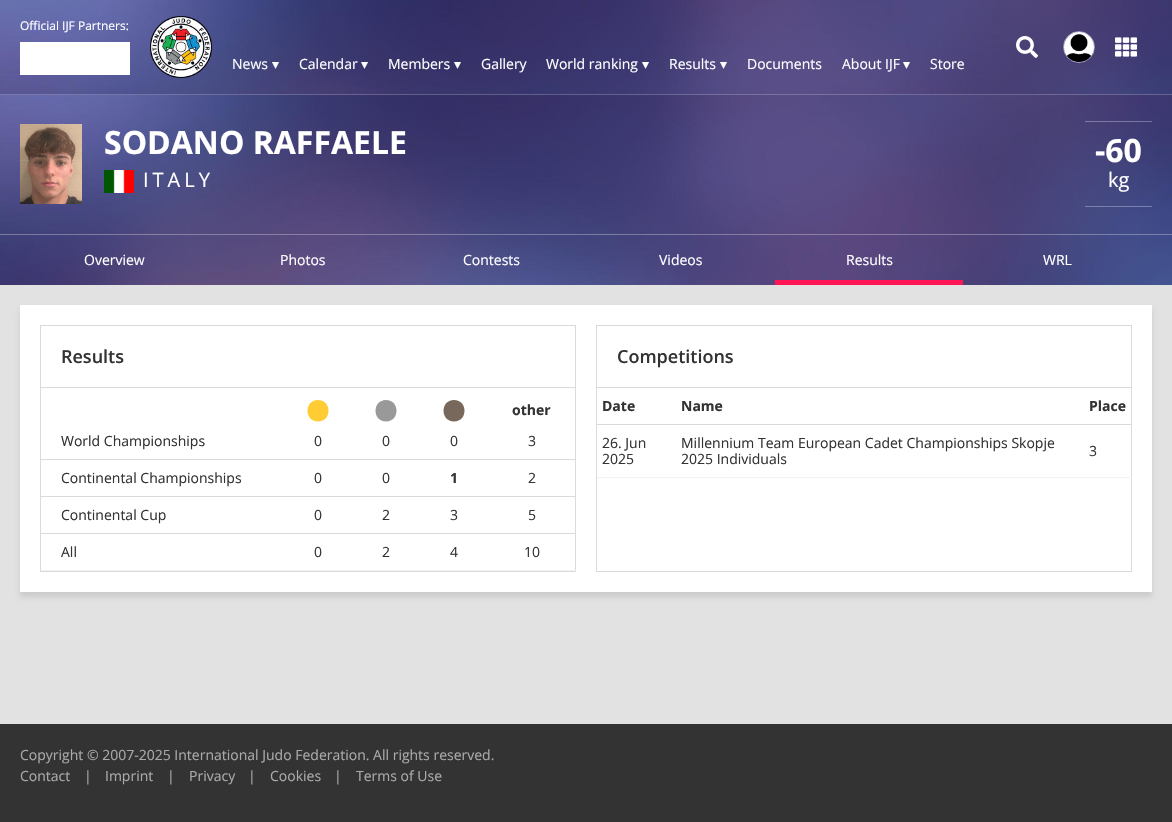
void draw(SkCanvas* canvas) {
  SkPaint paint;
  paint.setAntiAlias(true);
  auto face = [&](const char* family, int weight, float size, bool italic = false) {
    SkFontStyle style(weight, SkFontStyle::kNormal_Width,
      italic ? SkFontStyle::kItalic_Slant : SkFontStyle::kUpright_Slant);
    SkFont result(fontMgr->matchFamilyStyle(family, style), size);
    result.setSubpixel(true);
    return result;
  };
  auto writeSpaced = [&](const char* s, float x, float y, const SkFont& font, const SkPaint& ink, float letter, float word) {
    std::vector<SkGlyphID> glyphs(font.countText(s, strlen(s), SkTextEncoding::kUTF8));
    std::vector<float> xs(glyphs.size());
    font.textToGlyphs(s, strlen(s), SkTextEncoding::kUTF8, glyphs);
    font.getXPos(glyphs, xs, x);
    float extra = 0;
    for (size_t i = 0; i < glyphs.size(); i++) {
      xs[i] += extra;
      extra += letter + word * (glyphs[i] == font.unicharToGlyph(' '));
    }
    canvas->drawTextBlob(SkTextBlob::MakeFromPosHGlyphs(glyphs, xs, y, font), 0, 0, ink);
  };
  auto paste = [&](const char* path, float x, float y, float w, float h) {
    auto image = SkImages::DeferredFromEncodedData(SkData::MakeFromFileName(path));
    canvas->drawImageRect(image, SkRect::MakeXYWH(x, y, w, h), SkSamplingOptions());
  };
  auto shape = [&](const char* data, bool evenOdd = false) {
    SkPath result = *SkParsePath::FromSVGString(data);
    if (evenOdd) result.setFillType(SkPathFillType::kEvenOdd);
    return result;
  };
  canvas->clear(0xffe2e2e2);
  paste("img/1.png", 0, 0, 1172, 95);
  paint.setColor(0x33ffffff);
  canvas->drawRect(SkRect::MakeXYWH(0, 94, 1172, 1), paint);
  paint.setColor(0xffffffff);
  canvas->drawRect(SkRect::MakeXYWH(20, 42, 110, 33), paint);
  paste("img/2.png", 150, 16, 62, 62);
  paste("img/3.png", 1016, 36, 22, 22);
  paint.setStroke(true);
  paint.setStrokeWidth(1);
  paint.setColor(0x80ffffff);
  canvas->drawCircle(1079, 47, 15.5f, paint);
  paste("img/4.png", 1064, 32, 30, 30);
  paste("img/5.png", 1115, 37, 22, 20);
  paste("img/6.png", 0, 95, 1172, 190);
  paste("img/7.png", 20, 124, 62, 80);
  paste("img/8.png", 104, 170, 30, 23);
  paint.setStroke(false);
  {
    const struct { float x, y, w, h; SkColor color; } items[] = {
      {1085, 121, 67, 1, 0x4dffffff},
      {1085, 206, 67, 1, 0x4dffffff},
      {0, 234, 1172, 1, 0x4dffffff},
      {775, 280, 188, 5, 0xffff1553},
    };
    for (auto [x, y, w, h, color] : items) {
      paint.setColor(color);
      canvas->drawRect(SkRect::MakeXYWH(x, y, w, h), paint);
    }
  }
  paint.setColor(0x1a000000);
  paint.setMaskFilter(SkMaskFilter::MakeBlur(kNormal_SkBlurStyle, 2.5f));
  canvas->drawRect(SkRect::MakeXYWH(20, 310, 1132, 287), paint);
  paint.setMaskFilter(nullptr);
  paint.setColor(0xffffffff);
  canvas->drawRect(SkRect::MakeXYWH(20, 305, 1132, 287), paint);
  paint.setStroke(true);
  paint.setColor(0xffdadada);
  canvas->drawRect(SkRect::MakeXYWH(40.5f, 325.5f, 535, 246), paint);
  paint.setStroke(false);
  canvas->drawRect(SkRect::MakeXYWH(41, 387, 534, 1), paint);
  paint.setColor(0xffffcc33);
  canvas->drawPath(shape("M318 400C304 400 304 421.5 318 421.5C332 421.5 332 400 318 400Z"), paint);
  paint.setColor(0xff999999);
  canvas->drawPath(shape("M386 400C372 400 372 421.5 386 421.5C400 421.5 400 400 386 400Z"), paint);
  paint.setColor(0xff78685b);
  canvas->drawPath(shape("M454 400C440 400 440 421.5 454 421.5C468 421.5 468 400 454 400Z"), paint);
  {
    const struct { float x, y, w, h; SkColor color; } items[] = {
      {41, 459, 535, 1, 0xffdadada},
      {41, 496, 535, 1, 0xffdadada},
      {41, 533, 535, 1, 0xffdadada},
      {41, 570, 535, 1, 0xfff2f2f2},
    };
    for (auto [x, y, w, h, color] : items) {
      paint.setColor(color);
      canvas->drawRect(SkRect::MakeXYWH(x, y, w, h), paint);
    }
  }
  paint.setStroke(true);
  paint.setColor(0xffdadada);
  canvas->drawRect(SkRect::MakeXYWH(596.5f, 325.5f, 535, 246), paint);
  paint.setStroke(false);
  {
    const struct { float x, y, w, h; SkColor color; } items[] = {
      {597, 387, 534, 1, 0xffdadada},
      {597, 424, 535, 1, 0xffdadada},
      {597, 477, 535, 1, 0xfff2f2f2},
      {0, 724, 1172, 98, 0xff333333},
    };
    for (auto [x, y, w, h, color] : items) {
      paint.setColor(color);
      canvas->drawRect(SkRect::MakeXYWH(x, y, w, h), paint);
    }
  }
  auto f0 = face("Open Sans", 400, 12);
  paint.setColor(0xffffffff);
  canvas->drawString("Official IJF Partners:", 20, 30, f0, paint);
  auto f1 = face("Open Sans", 400, 14);
  canvas->drawString("News", 232, 69, f1, paint);
  auto f2 = face("DejaVu Sans", 400, 14);
  canvas->drawString("▾", 272, 69, f2, paint);
  canvas->drawString("Calendar", 299, 69, f1, paint);
  canvas->drawString("▾", 361, 69, f2, paint);
  canvas->drawString("Members", 388, 69, f1, paint);
  canvas->drawString("▾", 454, 69, f2, paint);
  canvas->drawString("Gallery", 481, 69, f1, paint);
  canvas->drawString("World ranking", 546, 69, f1, paint);
  canvas->drawString("▾", 642, 69, f2, paint);
  canvas->drawString("Results", 669, 69, f1, paint);
  canvas->drawString("▾", 720, 69, f2, paint);
  canvas->drawString("Documents", 747, 69, f1, paint);
  canvas->drawString("About IJF", 842, 69, f1, paint);
  canvas->drawString("▾", 903, 69, f2, paint);
  canvas->drawString("Store", 930, 69, f1, paint);
  auto f3 = face("Open Sans", 700, 32);
  canvas->drawString("SODANO RAFFAELE", 104, 154, f3, paint);
  auto f4 = face("Open Sans", 400, 20);
  writeSpaced("ITALY", 143, 187, f4, paint, 4, 0);
  canvas->drawString("-60", 1095, 162, f3, paint);
  canvas->drawString("kg", 1108, 187, f4, paint);
  {
    const struct { const char* s; float x, y; } items[] = {
      {"Overview", 84, 265},
      {"Photos", 280, 265},
      {"Contests", 463, 265},
      {"Videos", 659, 265},
      {"Results", 846, 265},
      {"WRL", 1043, 265},
    };
    for (auto [s, x, y] : items) {
      canvas->drawString(s, x, y, f1, paint);
    }
  }
  auto f5 = face("Open Sans", 600, 18);
  paint.setColor(0xff333333);
  canvas->drawString("Results", 61, 363, f5, paint);
  auto f6 = face("Open Sans", 700, 14);
  canvas->drawString("other", 512, 415, f6, paint);
  {
    const struct { const char* s; float x, y; } items[] = {
      {"World Championships", 61, 446},
      {"0", 314, 446},
      {"0", 382, 446},
      {"0", 450, 446},
      {"3", 528, 446},
      {"Continental Championships", 61, 483},
      {"0", 314, 483},
      {"0", 382, 483},
    };
    for (auto [s, x, y] : items) {
      canvas->drawString(s, x, y, f1, paint);
    }
  }
  canvas->drawString("1", 450, 483, f6, paint);
  {
    const struct { const char* s; float x, y; } items[] = {
      {"2", 528, 483},
      {"Continental Cup", 61, 520},
      {"0", 314, 520},
      {"2", 382, 520},
      {"3", 450, 520},
      {"5", 528, 520},
      {"All", 61, 557},
      {"0", 314, 557},
      {"2", 382, 557},
      {"4", 450, 557},
      {"10", 524, 557},
    };
    for (auto [s, x, y] : items) {
      canvas->drawString(s, x, y, f1, paint);
    }
  }
  canvas->drawString("Competitions", 617, 363, f5, paint);
  {
    const struct { const char* s; float x, y; } items[] = {
      {"Date", 602, 411},
      {"Name", 681, 411},
      {"Place", 1089, 411},
    };
    for (auto [s, x, y] : items) {
      canvas->drawString(s, x, y, f6, paint);
    }
  }
  {
    const struct { const char* s; float x, y; } items[] = {
      {"26. Jun", 602, 448},
      {"2025", 602, 464},
      {"Millennium Team European Cadet Championships Skopje", 681, 448},
      {"2025 Individuals", 681, 464},
      {"3", 1089, 456},
    };
    for (auto [s, x, y] : items) {
      canvas->drawString(s, x, y, f1, paint);
    }
  }
  paint.setColor(0xffaaaaaa);
  {
    const struct { const char* s; float x, y; } items[] = {
      {"Copyright © 2007-2025 International Judo Federation. All rights reserved.", 20, 760},
      {"Contact", 20, 781},
      {"|", 84, 781},
      {"Imprint", 105, 781},
      {"|", 167, 781},
      {"Privacy", 189, 781},
      {"|", 248, 781},
      {"Cookies", 270, 781},
      {"|", 334, 781},
      {"Terms of Use", 356, 781},
    };
    for (auto [s, x, y] : items) {
      canvas->drawString(s, x, y, f1, paint);
    }
  }
}
